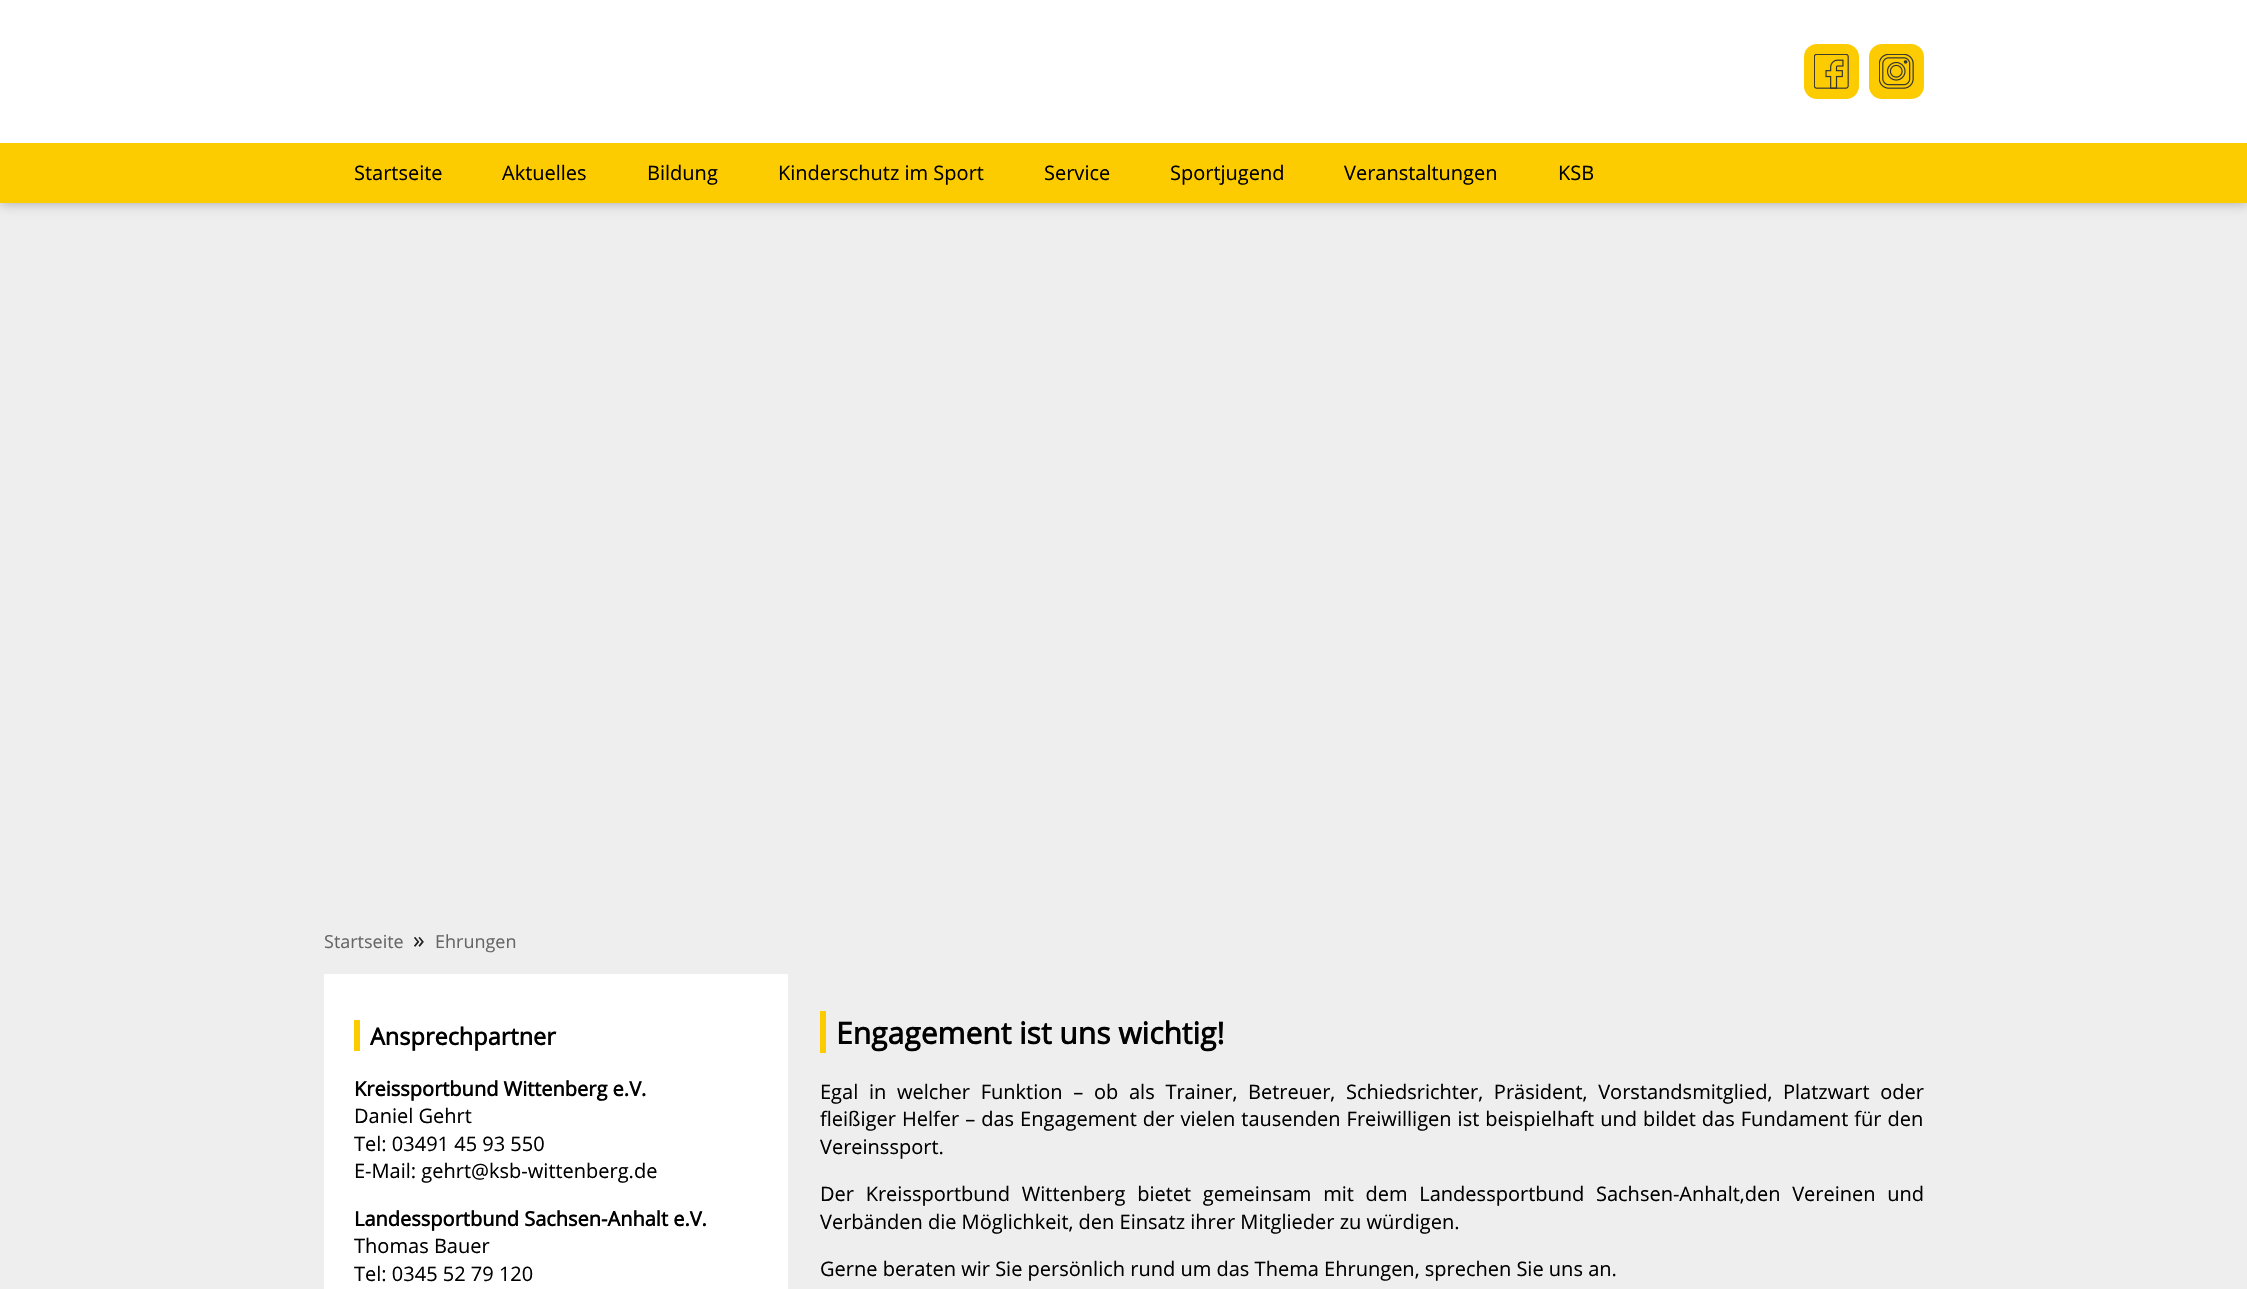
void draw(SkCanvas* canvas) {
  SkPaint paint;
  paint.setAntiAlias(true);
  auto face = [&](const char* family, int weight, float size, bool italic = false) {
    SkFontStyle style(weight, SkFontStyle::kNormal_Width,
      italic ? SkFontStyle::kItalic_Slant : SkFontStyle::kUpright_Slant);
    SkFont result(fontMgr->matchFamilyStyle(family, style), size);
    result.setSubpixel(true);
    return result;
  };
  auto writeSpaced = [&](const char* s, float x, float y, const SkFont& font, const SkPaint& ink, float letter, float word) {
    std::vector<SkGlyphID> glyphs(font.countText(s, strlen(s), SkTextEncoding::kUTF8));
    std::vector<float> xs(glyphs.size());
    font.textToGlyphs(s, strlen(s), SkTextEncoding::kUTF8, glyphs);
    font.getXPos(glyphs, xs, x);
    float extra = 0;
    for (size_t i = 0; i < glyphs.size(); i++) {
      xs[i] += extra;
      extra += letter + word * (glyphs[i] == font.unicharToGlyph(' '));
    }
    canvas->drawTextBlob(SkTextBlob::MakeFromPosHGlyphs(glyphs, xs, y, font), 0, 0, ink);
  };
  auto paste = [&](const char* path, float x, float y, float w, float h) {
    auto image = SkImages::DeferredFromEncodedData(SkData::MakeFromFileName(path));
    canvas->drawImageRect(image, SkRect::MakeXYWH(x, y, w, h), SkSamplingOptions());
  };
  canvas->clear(0xffeeeeee);
  paint.setColor(0x4d000000);
  paint.setMaskFilter(SkMaskFilter::MakeBlur(kNormal_SkBlurStyle, 6));
  canvas->drawRect(SkRect::MakeXYWH(0, 0, 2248, 203), paint);
  paint.setMaskFilter(nullptr);
  paint.setColor(0xffffffff);
  canvas->drawRect(SkRect::MakeXYWH(0, 0, 2247, 143), paint);
  paint.setColor(0xfffccb00);
  canvas->drawRect(SkRect::MakeXYWH(0, 143, 2247, 60), paint);
  canvas->drawRoundRect(SkRect::MakeXYWH(1804, 44, 55, 55), 13, 13, paint);
  paste("img/1.png", 1814, 54, 35, 35);
  canvas->drawRoundRect(SkRect::MakeXYWH(1869, 44, 55, 55), 13, 13, paint);
  paste("img/2.png", 1879, 54, 35, 35);
  {
    const struct { float x, y, w, h; SkColor color; } items[] = {
      {324, 974, 464, 315, 0xffffffff},
      {354, 1020, 6, 31, 0xfffccb00},
      {820, 1011, 6, 42, 0xfffccb00},
    };
    for (auto [x, y, w, h, color] : items) {
      paint.setColor(color);
      canvas->drawRect(SkRect::MakeXYWH(x, y, w, h), paint);
    }
  }
  auto f0 = face("Open Sans", 400, 20);
  paint.setColor(0xff000000);
  {
    const struct { const char* s; float x, y; } items[] = {
      {"Startseite", 354, 180},
      {"Aktuelles", 502, 180},
      {"Bildung", 647, 180},
      {"Kinderschutz im Sport", 778, 180},
      {"Service", 1044, 180},
      {"Sportjugend", 1170, 180},
      {"Veranstaltungen", 1344, 180},
      {"KSB", 1558, 180},
    };
    for (auto [s, x, y] : items) {
      canvas->drawString(s, x, y, f0, paint);
    }
  }
  auto f1 = face("Open Sans", 400, 18);
  paint.setColor(0xff666666);
  canvas->drawString("Startseite", 324, 948, f1, paint);
  auto f2 = face("Open Sans", 400, 23.5f);
  paint.setColor(0xff222222);
  canvas->drawString("»", 413, 948, f2, paint);
  paint.setColor(0xff666666);
  canvas->drawString("Ehrungen", 435, 948, f1, paint);
  auto f3 = face("Open Sans", 700, 23.5f);
  paint.setColor(0xff000000);
  canvas->drawString("Ansprechpartner", 370, 1045, f3, paint);
  auto f4 = face("Open Sans", 700, 20);
  canvas->drawString("Kreissportbund Wittenberg e.V.", 354, 1096, f4, paint);
  {
    const struct { const char* s; float x, y; } items[] = {
      {"Daniel Gehrt", 354, 1123},
      {"Tel: 03491 45 93 550", 354, 1151},
      {"E-Mail: gehrt@ksb-wittenberg.de", 354, 1178},
    };
    for (auto [s, x, y] : items) {
      canvas->drawString(s, x, y, f0, paint);
    }
  }
  canvas->drawString("Landessportbund Sachsen-Anhalt e.V.", 354, 1226, f4, paint);
  canvas->drawString("Thomas Bauer", 354, 1253, f0, paint);
  canvas->drawString("Tel: 0345 52 79 120", 354, 1281, f0, paint);
  auto f5 = face("Open Sans", 700, 30);
  canvas->drawString("Engagement ist uns wichtig!", 836, 1044, f5, paint);
  writeSpaced("Egal in welcher Funktion – ob als Trainer, Betreuer, Schiedsrichter, Präsident, Vorstandsmitglied, Platzwart oder", 820, 1099, f0, paint, 0, 5.5f);
  writeSpaced("fleißiger Helfer – das Engagement der vielen tausenden Freiwilligen ist beispielhaft und bildet das Fundament für den", 820, 1126, f0, paint, 0, 0.8f);
  canvas->drawString("Vereinssport.", 820, 1154, f0, paint);
  writeSpaced("Der Kreissportbund Wittenberg bietet gemeinsam mit dem Landessportbund Sachsen-Anhalt,den Vereinen und", 820, 1201, f0, paint, 0, 6.5f);
  canvas->drawString("Verbänden die Möglichkeit, den Einsatz ihrer Mitglieder zu würdigen.", 820, 1229, f0, paint);
  canvas->drawString("Gerne beraten wir Sie persönlich rund um das Thema Ehrungen, sprechen Sie uns an.", 820, 1276, f0, paint);
}
